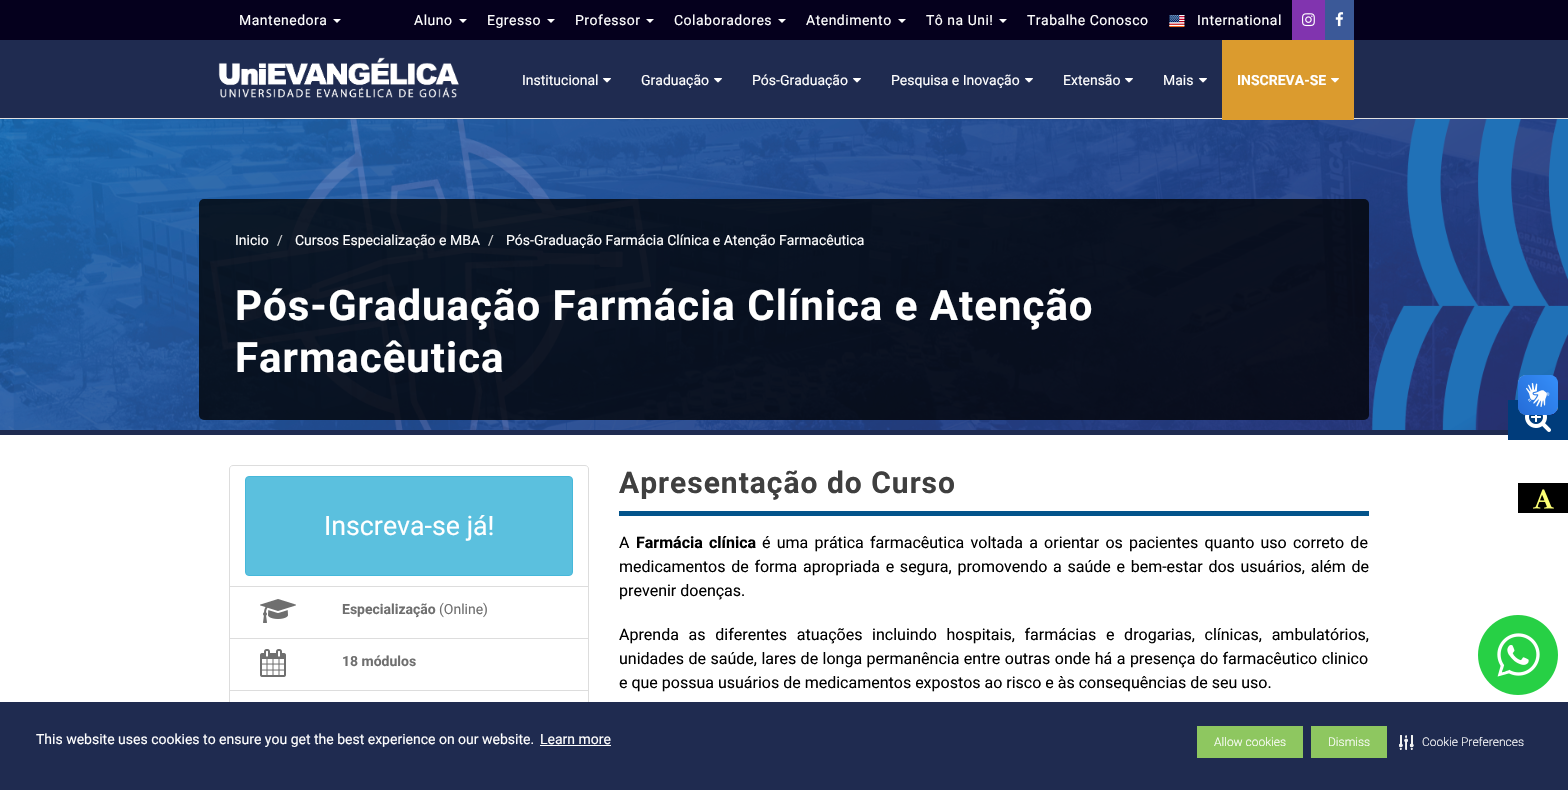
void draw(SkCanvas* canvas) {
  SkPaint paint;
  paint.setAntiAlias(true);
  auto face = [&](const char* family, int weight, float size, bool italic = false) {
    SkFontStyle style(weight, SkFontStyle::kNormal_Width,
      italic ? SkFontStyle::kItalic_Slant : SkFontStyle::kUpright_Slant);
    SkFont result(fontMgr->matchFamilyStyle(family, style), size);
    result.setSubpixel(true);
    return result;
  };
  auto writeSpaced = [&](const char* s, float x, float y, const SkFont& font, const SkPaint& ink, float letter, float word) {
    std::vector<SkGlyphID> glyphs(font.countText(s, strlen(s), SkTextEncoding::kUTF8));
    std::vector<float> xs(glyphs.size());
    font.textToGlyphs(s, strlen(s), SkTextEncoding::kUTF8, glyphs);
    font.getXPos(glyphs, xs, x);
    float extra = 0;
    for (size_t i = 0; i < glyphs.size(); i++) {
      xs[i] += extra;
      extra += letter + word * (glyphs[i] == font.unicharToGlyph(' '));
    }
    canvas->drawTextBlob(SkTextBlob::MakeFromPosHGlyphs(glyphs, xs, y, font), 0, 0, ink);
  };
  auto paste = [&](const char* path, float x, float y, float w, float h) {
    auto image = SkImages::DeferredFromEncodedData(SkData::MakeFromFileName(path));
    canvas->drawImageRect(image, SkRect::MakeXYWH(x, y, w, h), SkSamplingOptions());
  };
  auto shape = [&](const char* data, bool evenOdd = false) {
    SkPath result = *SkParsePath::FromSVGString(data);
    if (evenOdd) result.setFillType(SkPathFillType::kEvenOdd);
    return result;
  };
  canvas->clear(0xffffffff);
  paint.setColor(0xff05001d);
  canvas->drawRect(SkRect::MakeXYWH(0, 0, 1568, 40), paint);
  paint.setColor(0xffffffff);
  canvas->drawPath(shape("M333 19H341L337 23Z"), paint);
  canvas->drawPath(shape("M459 19H467L463 23Z"), paint);
  canvas->drawPath(shape("M547 19H555L551 23Z"), paint);
  canvas->drawPath(shape("M646 19H654L650 23Z"), paint);
  canvas->drawPath(shape("M778 19H786L782 23Z"), paint);
  canvas->drawPath(shape("M898 19H906L902 23Z"), paint);
  canvas->drawPath(shape("M999 19H1007L1003 23Z"), paint);
  paste("img/1.png", 1169, 15, 16, 13);
  paint.setColor(0xff8134af);
  canvas->drawRect(SkRect::MakeXYWH(1292, 0, 33, 40), paint);
  paste("img/2.png", 1302, 13, 13, 14);
  paint.setColor(0xff3b5998);
  canvas->drawRect(SkRect::MakeXYWH(1325, 0, 29, 40), paint);
  paste("img/3.png", 1335, 12, 9, 15);
  paint.setColor(0xff1f2b50);
  canvas->drawRect(SkRect::MakeXYWH(0, 40, 1568, 78), paint);
  paint.setColor(0xffe0e0e0);
  canvas->drawRect(SkRect::MakeXYWH(0, 118, 1568, 1), paint);
  paste("img/4.png", 218, 57, 241, 41);
  paste("img/5.png", 603, 78, 8, 5);
  paste("img/5.png", 714, 78, 8, 5);
  paste("img/5.png", 853, 78, 8, 5);
  paste("img/5.png", 1025, 78, 8, 5);
  paste("img/5.png", 1125, 78, 8, 5);
  paste("img/5.png", 1199, 78, 8, 5);
  paste("img/9.png", 0, 119, 1568, 311);
  paint.setColor(0xffdb9b2e);
  canvas->drawRect(SkRect::MakeXYWH(1222, 40, 132, 80), paint);
  paste("img/6.png", 1331, 78, 8, 5);
  paint.setColor(0xff003c7b);
  canvas->drawRect(SkRect::MakeXYWH(1508, 400, 60, 40), paint);
  paste("img/7.png", 1525, 414, 26, 18);
  paint.setColor(0xff000000);
  canvas->drawRect(SkRect::MakeXYWH(1518, 483, 50, 30), paint);
  paste("img/8.png", 1533, 489, 21, 20);
  paint.setColor(0xff1f2b50);
  canvas->drawRect(SkRect::MakeXYWH(0, 430, 1508, 5), paint);
  paint.setColor(0xc4000000);
  canvas->drawRoundRect(SkRect::MakeXYWH(199, 199, 1170, 221), 5, 5, paint);
  paste("img/10.png", 1518, 375, 40, 40);
  paste("img/11.png", 1518, 375, 40, 40);
  paint.setStroke(true);
  paint.setStrokeWidth(1);
  paint.setColor(0xffdddddd);
  canvas->drawPath(shape("M233 465.5H585C587 465.5 588.5 467 588.5 469V586.5H229.5V469C229.5 467 231 465.5 233 465.5Z"), paint);
  paint.setStroke(false);
  paint.setColor(0xff5bc0de);
  canvas->drawRoundRect(SkRect::MakeXYWH(245.5f, 476.5f, 327, 99), 3.5f, 3.5f, paint);
  paint.setStroke(true);
  paint.setColor(0xff46b8da);
  canvas->drawRoundRect(SkRect::MakeXYWH(245.5f, 476.5f, 327, 99), 3.5f, 3.5f, paint);
  paint.setColor(0xffdddddd);
  canvas->drawRect(SkRect::MakeXYWH(229.5f, 586.5f, 359, 52), paint);
  paste("img/12.png", 260, 599, 36, 24);
  canvas->drawRect(SkRect::MakeXYWH(229.5f, 638.5f, 359, 52), paint);
  paste("img/13.png", 260, 649, 26, 28);
  canvas->drawRect(SkRect::MakeXYWH(229.5f, 690.5f, 359, 77), paint);
  paint.setStroke(false);
  paint.setColor(0xff03548b);
  canvas->drawRect(SkRect::MakeXYWH(619, 511, 750, 5), paint);
  paste("img/14.png", 1478, 615, 80, 80);
  {
    const struct { float x, y, w, h; SkColor color; } items[] = {
      {0, 702, 1568, 88, 0xff1f2b50},
      {540, 745, 71, 1, 0xffffffff},
      {1197, 726, 106, 32, 0xff8ec760},
      {1311, 726, 76, 32, 0xff8ec760},
    };
    for (auto [x, y, w, h, color] : items) {
      paint.setColor(color);
      canvas->drawRect(SkRect::MakeXYWH(x, y, w, h), paint);
    }
  }
  paste("img/15.png", 1399, 735, 15, 15);
  auto f0 = face("Roboto", 400, 14);
  paint.setColor(0xffffffff);
  {
    const struct { const char* s; float x, y; } items[] = {
      {"Mantenedora", 239, 25},
      {"Aluno", 414, 25},
      {"Egresso", 487, 25},
      {"Professor", 575, 25},
      {"Colaboradores", 674, 25},
      {"Atendimento", 806, 25},
      {"Tô na Uni!", 926, 25},
      {"Trabalhe Conosco", 1027, 25},
      {"International", 1197, 25},
    };
    for (auto [s, x, y] : items) {
      writeSpaced(s, x, y, f0, paint, 0.5f, 0);
    }
  }
  {
    const struct { const char* s; float x, y; } items[] = {
      {"Institucional", 522, 85},
      {"Graduação", 641, 85},
      {"Pós-Graduação", 752, 85},
      {"Pesquisa e Inovação", 891, 85},
      {"Extensão", 1063, 85},
      {"Mais", 1163, 85},
    };
    for (auto [s, x, y] : items) {
      canvas->drawString(s, x, y, f0, paint);
    }
  }
  auto f1 = face("Roboto", 700, 14);
  canvas->drawString("INSCREVA-SE", 1237, 85, f1, paint);
  canvas->drawString("Inicio", 235, 245, f0, paint);
  paint.setColor(0xffcccccc);
  canvas->drawString("/", 277, 245, f0, paint);
  paint.setColor(0xffffffff);
  canvas->drawString("Cursos Especialização e MBA", 295, 245, f0, paint);
  paint.setColor(0xffcccccc);
  canvas->drawString("/", 488, 245, f0, paint);
  paint.setColor(0xffffffff);
  canvas->drawString("Pós-Graduação Farmácia Clínica e Atenção Farmacêutica", 506, 245, f0, paint);
  auto f2 = face("Roboto", 700, 42);
  writeSpaced("Pós-Graduação Farmácia Clínica e Atenção", 235, 320, f2, paint, 1, 0);
  writeSpaced("Farmacêutica", 235, 372, f2, paint, 1, 0);
  auto f3 = face("Roboto", 400, 26.75f);
  canvas->drawString("Inscreva-se já!", 324, 535, f3, paint);
  paint.setColor(0xff6f6f6f);
  canvas->drawString("Especialização", 342, 614, f1, paint);
  canvas->drawString("(Online)", 439, 614, f0, paint);
  canvas->drawString("18 módulos", 342, 666, f1, paint);
  auto f4 = face("Roboto", 700, 30);
  paint.setColor(0xff3f3f3f);
  writeSpaced("Apresentação do Curso", 619, 493, f4, paint, 1, 0);
  auto f5 = face("Roboto", 400, 16);
  paint.setColor(0xff000000);
  canvas->drawString("A", 619, 548, f5, paint);
  auto f6 = face("Roboto", 700, 16);
  writeSpaced("Farmácia clínica", 636, 548, f6, paint, 0, 2.25f);
  writeSpaced("é uma prática farmacêutica voltada a orientar os pacientes quanto uso correto de", 762, 548, f5, paint, 0, 2.25f);
  writeSpaced("medicamentos de forma apropriada e segura, promovendo a saúde e bem-estar dos usuários, além de", 619, 572, f5, paint, 0, 1.75f);
  canvas->drawString("prevenir doenças.", 619, 596, f5, paint);
  writeSpaced("Aprenda as diferentes atuações incluindo hospitais, farmácias e drogarias, clínicas, ambulatórios,", 619, 640, f5, paint, 0, 5.75f);
  writeSpaced("unidades de saúde, lares de longa permanência entre outras onde há a presença do farmacêutico clinico", 619, 664, f5, paint, 0, 0.5f);
  canvas->drawString("e que possua usuários de medicamentos expostos ao risco e às consequências de seu uso.", 619, 688, f5, paint);
  paint.setColor(0xffffffff);
  canvas->drawString("This website uses cookies to ensure you get the best experience on our website.", 36, 744, f0, paint);
  canvas->drawString("Learn more", 540, 744, f0, paint);
  auto f7 = face("Roboto", 300, 12);
  {
    const struct { const char* s; float x, y; } items[] = {
      {"Allow cookies", 1214, 746},
      {"Dismiss", 1328, 746},
      {"Cookie Preferences", 1422, 746},
    };
    for (auto [s, x, y] : items) {
      canvas->drawString(s, x, y, f7, paint);
    }
  }
}
